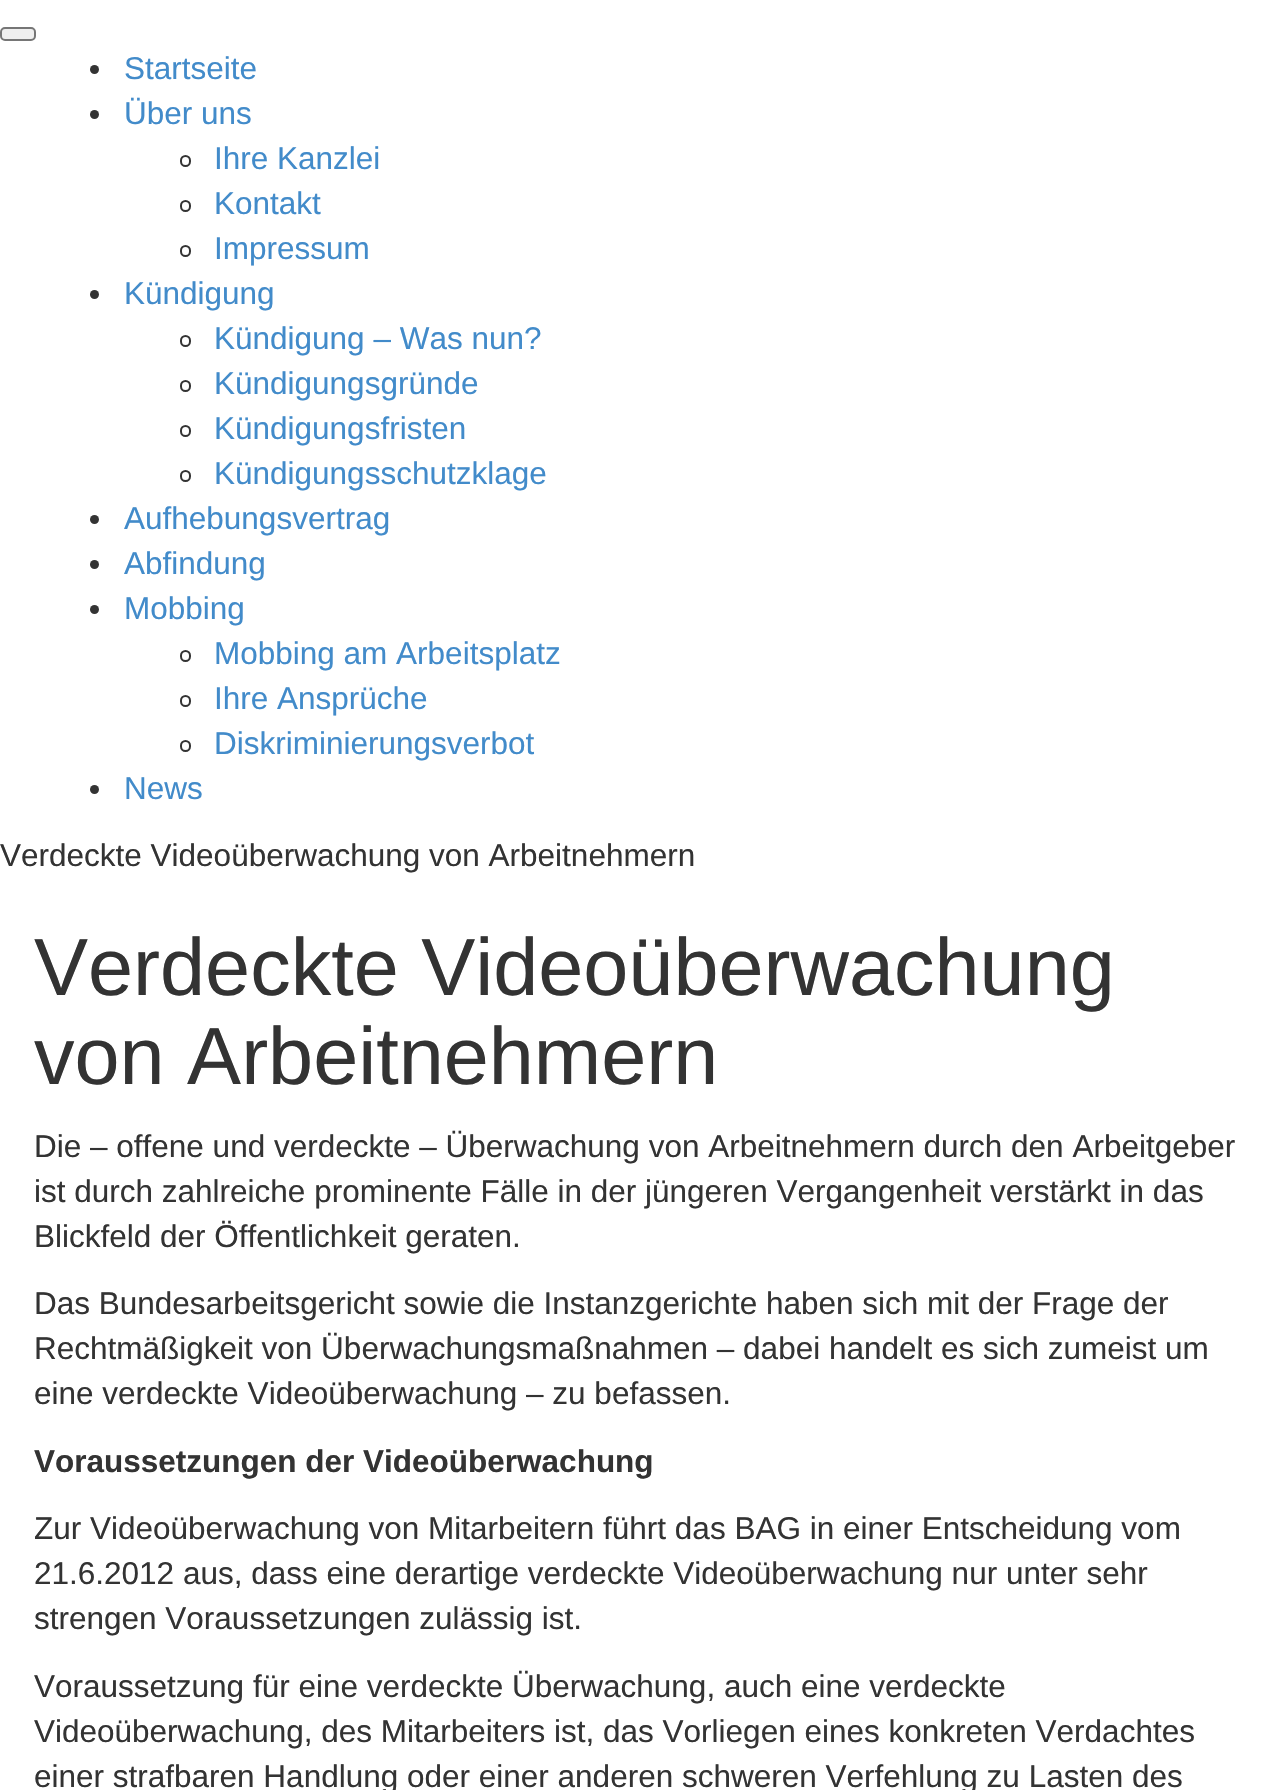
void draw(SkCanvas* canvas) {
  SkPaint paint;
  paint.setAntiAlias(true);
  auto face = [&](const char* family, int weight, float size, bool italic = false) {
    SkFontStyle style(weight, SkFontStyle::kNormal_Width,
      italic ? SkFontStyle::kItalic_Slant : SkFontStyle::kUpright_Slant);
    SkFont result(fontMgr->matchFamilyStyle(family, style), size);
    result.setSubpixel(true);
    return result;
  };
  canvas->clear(0xffffffff);
  paint.setColor(0xffefefef);
  canvas->drawRoundRect(SkRect::MakeXYWH(1, 28, 34, 12), 4, 4, paint);
  paint.setStroke(true);
  paint.setStrokeWidth(2);
  paint.setColor(0xff767676);
  canvas->drawRoundRect(SkRect::MakeXYWH(1, 28, 34, 12), 4, 4, paint);
  paint.setStroke(false);
  paint.setColor(0xff333333);
  canvas->drawCircle(94.5f, 69.5f, 4.5f, paint);
  canvas->drawCircle(94.5f, 114.5f, 4.5f, paint);
  paint.setStroke(true);
  canvas->drawRoundRect(SkRect::MakeXYWH(181, 156, 9, 10), 4.5f, 4.5f, paint);
  canvas->drawRoundRect(SkRect::MakeXYWH(181, 201, 9, 10), 4.5f, 4.5f, paint);
  canvas->drawRoundRect(SkRect::MakeXYWH(181, 246, 9, 10), 4.5f, 4.5f, paint);
  paint.setStroke(false);
  canvas->drawCircle(94.5f, 294.5f, 4.5f, paint);
  paint.setStroke(true);
  canvas->drawRoundRect(SkRect::MakeXYWH(181, 336, 9, 10), 4.5f, 4.5f, paint);
  canvas->drawRoundRect(SkRect::MakeXYWH(181, 381, 9, 10), 4.5f, 4.5f, paint);
  canvas->drawRoundRect(SkRect::MakeXYWH(181, 426, 9, 10), 4.5f, 4.5f, paint);
  canvas->drawRoundRect(SkRect::MakeXYWH(181, 471, 9, 10), 4.5f, 4.5f, paint);
  paint.setStroke(false);
  canvas->drawCircle(94.5f, 519.5f, 4.5f, paint);
  canvas->drawCircle(94.5f, 564.5f, 4.5f, paint);
  canvas->drawCircle(94.5f, 609.5f, 4.5f, paint);
  paint.setStroke(true);
  canvas->drawRoundRect(SkRect::MakeXYWH(181, 651, 9, 10), 4.5f, 4.5f, paint);
  canvas->drawRoundRect(SkRect::MakeXYWH(181, 696, 9, 10), 4.5f, 4.5f, paint);
  canvas->drawRoundRect(SkRect::MakeXYWH(181, 741, 9, 10), 4.5f, 4.5f, paint);
  paint.setStroke(false);
  canvas->drawCircle(94.5f, 789.5f, 4.5f, paint);
  auto f0 = face("Liberation Sans", 400, 31.5f);
  paint.setColor(0xff428bca);
  {
    const struct { const char* s; float x, y; } items[] = {
      {"Startseite", 124, 79},
      {"Über uns", 124, 124},
      {"Ihre Kanzlei", 214, 169},
      {"Kontakt", 214, 214},
      {"Impressum", 214, 259},
      {"Kündigung", 124, 304},
      {"Kündigung – Was nun?", 214, 349},
      {"Kündigungsgründe", 214, 394},
      {"Kündigungsfristen", 214, 439},
      {"Kündigungsschutzklage", 214, 484},
      {"Aufhebungsvertrag", 124, 529},
      {"Abfindung", 124, 574},
      {"Mobbing", 124, 619},
      {"Mobbing am Arbeitsplatz", 214, 664},
      {"Ihre Ansprüche", 214, 709},
      {"Diskriminierungsverbot", 214, 754},
      {"News", 124, 799},
    };
    for (auto [s, x, y] : items) {
      canvas->drawString(s, x, y, f0, paint);
    }
  }
  paint.setColor(0xff333333);
  canvas->drawString("Verdeckte Videoüberwachung von Arbeitnehmern", 0, 866, f0, paint);
  auto f1 = face("Liberation Sans", 400, 81);
  canvas->drawString("Verdeckte Videoüberwachung", 34, 995, f1, paint);
  canvas->drawString("von Arbeitnehmern", 34, 1084, f1, paint);
  {
    const struct { const char* s; float x, y; } items[] = {
      {"Die – offene und verdeckte – Überwachung von Arbeitnehmern durch den Arbeitgeber", 34, 1157},
      {"ist durch zahlreiche prominente Fälle in der jüngeren Vergangenheit verstärkt in das", 34, 1202},
      {"Blickfeld der Öffentlichkeit geraten.", 34, 1247},
      {"Das Bundesarbeitsgericht sowie die Instanzgerichte haben sich mit der Frage der", 34, 1314},
      {"Rechtmäßigkeit von Überwachungsmaßnahmen – dabei handelt es sich zumeist um", 34, 1359},
      {"eine verdeckte Videoüberwachung – zu befassen.", 34, 1404},
    };
    for (auto [s, x, y] : items) {
      canvas->drawString(s, x, y, f0, paint);
    }
  }
  auto f2 = face("Liberation Sans", 700, 31.5f);
  canvas->drawString("Voraussetzungen der Videoüberwachung", 34, 1472, f2, paint);
  {
    const struct { const char* s; float x, y; } items[] = {
      {"Zur Videoüberwachung von Mitarbeitern führt das BAG in einer Entscheidung vom", 34, 1539},
      {"21.6.2012 aus, dass eine derartige verdeckte Videoüberwachung nur unter sehr", 34, 1584},
      {"strengen Voraussetzungen zulässig ist.", 34, 1629},
      {"Voraussetzung für eine verdeckte Überwachung, auch eine verdeckte", 34, 1697},
      {"Videoüberwachung, des Mitarbeiters ist, das Vorliegen eines konkreten Verdachtes", 34, 1742},
      {"einer strafbaren Handlung oder einer anderen schweren Verfehlung zu Lasten des", 34, 1787},
    };
    for (auto [s, x, y] : items) {
      canvas->drawString(s, x, y, f0, paint);
    }
  }
}
